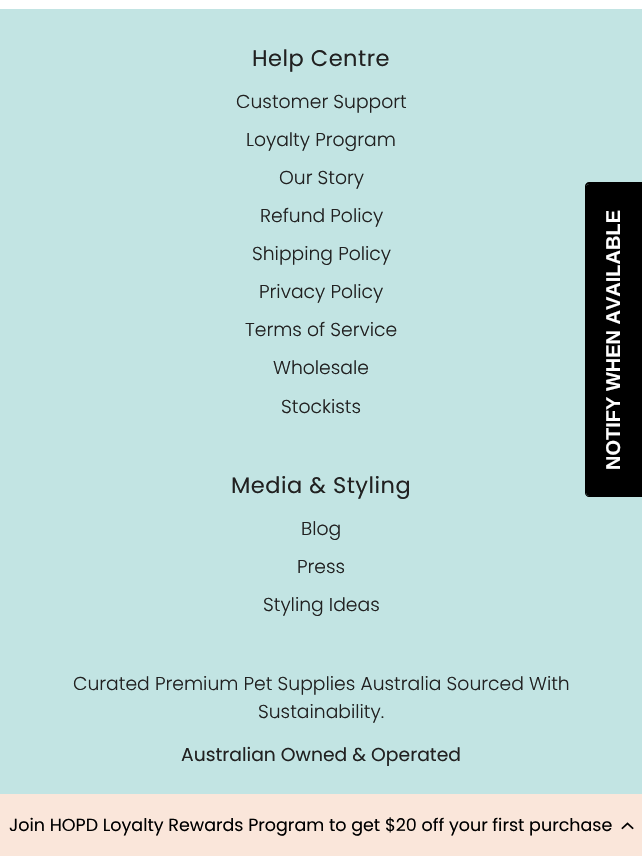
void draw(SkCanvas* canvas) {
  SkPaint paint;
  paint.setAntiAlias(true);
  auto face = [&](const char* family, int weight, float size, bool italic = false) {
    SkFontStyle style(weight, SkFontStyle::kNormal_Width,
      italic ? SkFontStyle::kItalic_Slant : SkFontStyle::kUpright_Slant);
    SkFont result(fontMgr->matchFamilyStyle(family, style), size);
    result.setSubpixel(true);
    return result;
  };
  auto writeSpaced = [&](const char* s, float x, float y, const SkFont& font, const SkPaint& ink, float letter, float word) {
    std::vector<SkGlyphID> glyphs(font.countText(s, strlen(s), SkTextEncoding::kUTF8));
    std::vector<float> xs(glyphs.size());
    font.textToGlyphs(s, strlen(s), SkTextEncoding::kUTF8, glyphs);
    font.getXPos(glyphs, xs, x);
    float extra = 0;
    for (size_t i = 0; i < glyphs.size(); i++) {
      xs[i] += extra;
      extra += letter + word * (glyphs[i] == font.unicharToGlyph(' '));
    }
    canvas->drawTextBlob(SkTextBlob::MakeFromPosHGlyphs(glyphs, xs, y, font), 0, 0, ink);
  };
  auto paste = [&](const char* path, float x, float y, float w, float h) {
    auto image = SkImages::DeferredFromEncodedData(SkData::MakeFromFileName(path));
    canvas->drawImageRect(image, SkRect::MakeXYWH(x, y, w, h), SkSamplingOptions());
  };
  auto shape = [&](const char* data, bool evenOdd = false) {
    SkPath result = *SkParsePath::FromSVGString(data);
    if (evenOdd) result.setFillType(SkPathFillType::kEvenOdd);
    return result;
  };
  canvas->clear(0xffffffff);
  paint.setColor(0xffc2e4e3);
  canvas->drawRect(SkRect::MakeXYWH(0, 9, 642, 785), paint);
  paint.setColor(0xff000000);
  canvas->drawPath(shape("M586 493V186C586 185 588 184 589 184H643V496H589C588 496 586 494 586 493Z"), paint);
  canvas->drawPath(shape("M585 493V186C585 184 587 182 589 182H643V497H589C587 497 585 495 585 493ZM586 493V186C586 185 588 184 589 184H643V496H589C588 496 586 494 586 493Z", true), paint);
  paint.setColor(0xfffae6da);
  canvas->drawRect(SkRect::MakeXYWH(0, 794, 642, 62), paint);
  paste("img/1.png", 621, 822, 13, 8);
  auto f0 = face("Poppins", 400, 22.5f);
  paint.setColor(0xff212121);
  writeSpaced("Help Centre", 252, 66, f0, paint, 0.5f, 0);
  auto f1 = face("Poppins", 300, 18.75f);
  {
    const struct { const char* s; float x, y; } items[] = {
      {"Customer Support", 236, 108},
      {"Loyalty Program", 246, 146},
      {"Our Story", 279, 184},
      {"Refund Policy", 260, 222},
      {"Shipping Policy", 252, 260},
      {"Privacy Policy", 259, 298},
      {"Terms of Service", 245, 336},
      {"Wholesale", 273, 374},
      {"Stockists", 281, 413},
    };
    for (auto [s, x, y] : items) {
      canvas->drawString(s, x, y, f1, paint);
    }
  }
  writeSpaced("Media & Styling", 231, 493, f0, paint, 0.5f, 0);
  {
    const struct { const char* s; float x, y; } items[] = {
      {"Blog", 301, 535},
      {"Press", 297, 573},
      {"Styling Ideas", 263, 611},
      {"Curated Premium Pet Supplies Australia Sourced With", 73, 690},
      {"Sustainability.", 258, 718},
    };
    for (auto [s, x, y] : items) {
      canvas->drawString(s, x, y, f1, paint);
    }
  }
  auto f2 = face("Poppins", 400, 18.75f);
  canvas->drawString("Australian Owned & Operated", 181, 761, f2, paint);
  auto f3 = face("Liberation Sans", 700, 20);
  paint.setColor(0xffffffff);
  canvas->save();
  canvas->rotate(-90, 620, 470);
  canvas->drawString("NOTIFY WHEN AVAILABLE", 620, 470, f3, paint);
  canvas->restore();
  auto f4 = face("Poppins", 400, 17.5f);
  paint.setColor(0xff000000);
  canvas->drawString("Join HOPD Loyalty Rewards Program to get $20 off your first purchase", 9, 831, f4, paint);
}
